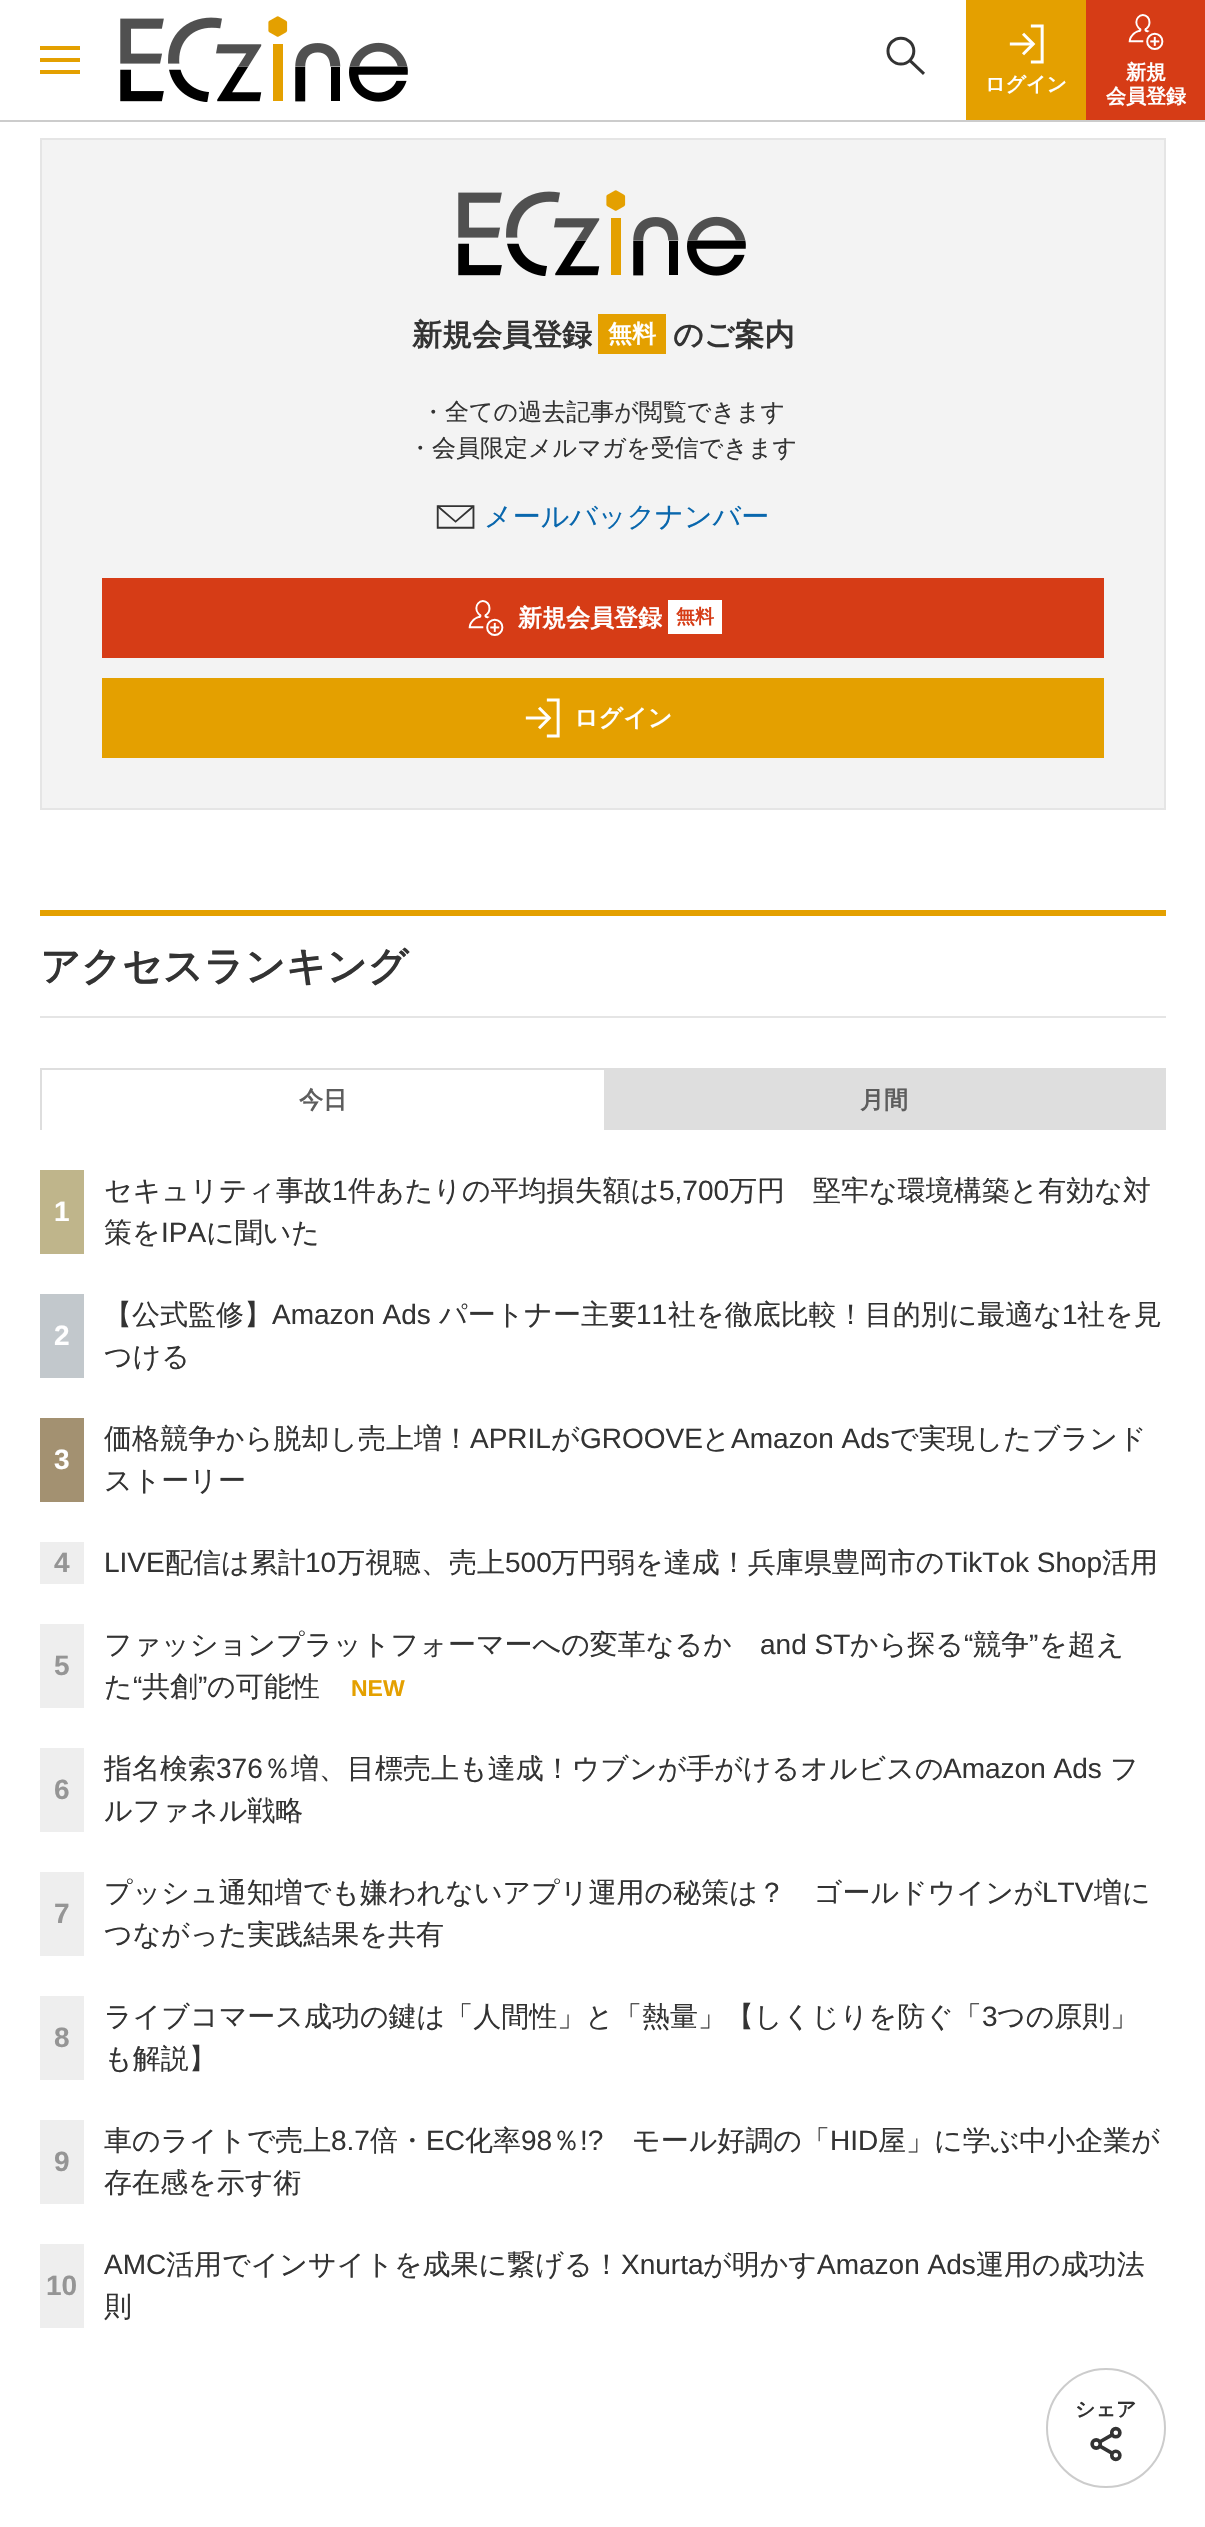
void draw(SkCanvas* canvas) {
  SkPaint paint;
  paint.setAntiAlias(true);
  auto face = [&](const char* family, int weight, float size, bool italic = false) {
    SkFontStyle style(weight, SkFontStyle::kNormal_Width,
      italic ? SkFontStyle::kItalic_Slant : SkFontStyle::kUpright_Slant);
    SkFont result(fontMgr->matchFamilyStyle(family, style), size);
    result.setSubpixel(true);
    return result;
  };
  auto paste = [&](const char* path, float x, float y, float w, float h) {
    auto image = SkImages::DeferredFromEncodedData(SkData::MakeFromFileName(path));
    canvas->drawImageRect(image, SkRect::MakeXYWH(x, y, w, h), SkSamplingOptions());
  };
  canvas->clear(0xffffffff);
  {
    const struct { float x, y, w, h; SkColor color; } items[] = {
      {0, 120, 1205, 2, 0xffcccccc},
      {40, 58, 40, 4, 0xffe4a000},
      {40, 46, 40, 4, 0xffe4a000},
      {40, 70, 40, 4, 0xffe4a000},
    };
    for (auto [x, y, w, h, color] : items) {
      paint.setColor(color);
      canvas->drawRect(SkRect::MakeXYWH(x, y, w, h), paint);
    }
  }
  paste("img/1.png", 120, 16, 288, 86);
  paste("img/2.png", 886, 36, 39, 39);
  canvas->drawRect(SkRect::MakeXYWH(966, 0, 120, 120), paint);
  paste("img/3.png", 1009, 24, 35, 40);
  paint.setColor(0xffd63c16);
  canvas->drawRect(SkRect::MakeXYWH(1086, 0, 119, 120), paint);
  paste("img/4.png", 1128, 14, 36, 36);
  paint.setColor(0xfff3f3f3);
  canvas->drawRect(SkRect::MakeXYWH(41, 139, 1124, 670), paint);
  paint.setStroke(true);
  paint.setStrokeWidth(2);
  paint.setColor(0xffe5e5e5);
  canvas->drawRect(SkRect::MakeXYWH(41, 139, 1124, 670), paint);
  paste("img/5.png", 458, 190, 288, 86);
  paint.setStroke(false);
  paint.setColor(0xffe4a000);
  canvas->drawRect(SkRect::MakeXYWH(598, 314, 68, 40), paint);
  paste("img/6.png", 436, 505, 39, 24);
  paint.setColor(0xffd63c16);
  canvas->drawRect(SkRect::MakeXYWH(102, 578, 1002, 80), paint);
  paste("img/7.png", 468, 600, 36, 36);
  paint.setColor(0xffffffff);
  canvas->drawRect(SkRect::MakeXYWH(668, 600, 54, 34), paint);
  paint.setColor(0xffe4a000);
  canvas->drawRect(SkRect::MakeXYWH(102, 678, 1002, 80), paint);
  paste("img/3.png", 525, 698, 35, 40);
  {
    const struct { float x, y, w, h; SkColor color; } items[] = {
      {40, 910, 1126, 6, 0xffe4a000},
      {40, 1016, 1126, 2, 0xffe5e5e5},
      {40, 1068, 1126, 62, 0xffdedede},
      {42, 1070, 562, 60, 0xffffffff},
      {40, 1170, 44, 84, 0xffbfb58b},
      {40, 1294, 44, 84, 0xffc2c8cc},
      {40, 1418, 44, 84, 0xffa39171},
      {40, 1542, 44, 42, 0xffeeeeee},
      {40, 1624, 44, 84, 0xffeeeeee},
      {40, 1748, 44, 84, 0xffeeeeee},
      {40, 1872, 44, 84, 0xffeeeeee},
      {40, 1996, 44, 84, 0xffeeeeee},
      {40, 2120, 44, 84, 0xffeeeeee},
      {40, 2244, 44, 84, 0xffeeeeee},
    };
    for (auto [x, y, w, h, color] : items) {
      paint.setColor(color);
      canvas->drawRect(SkRect::MakeXYWH(x, y, w, h), paint);
    }
  }
  paint.setStroke(true);
  paint.setColor(0xffcccccc);
  canvas->drawCircle(1106, 2428, 59, paint);
  paste("img/8.png", 1090, 2426, 32, 36);
  auto f0 = face("WenQuanYi Zen Hei", 700, 20);
  paint.setStroke(false);
  paint.setColor(0xffffffff);
  {
    const struct { const char* s; float x, y; } items[] = {
      {"ログイン", 985, 91},
      {"新規", 1126, 79},
      {"会員登録", 1106, 103},
    };
    for (auto [s, x, y] : items) {
      canvas->drawString(s, x, y, f0, paint);
    }
  }
  auto f1 = face("WenQuanYi Zen Hei", 700, 30);
  paint.setColor(0xff333333);
  canvas->drawString("新規会員登録", 412, 345, f1, paint);
  auto f2 = face("WenQuanYi Zen Hei", 700, 24);
  paint.setColor(0xffffffff);
  canvas->drawString("無料", 608, 342, f2, paint);
  paint.setColor(0xff333333);
  canvas->drawString("のご案内", 673, 345, f1, paint);
  auto f3 = face("WenQuanYi Zen Hei", 500, 24);
  canvas->drawString("・全ての過去記事が閲覧できます", 421, 420, f3, paint);
  canvas->drawString("・会員限定メルマガを受信できます", 408, 456, f3, paint);
  auto f4 = face("WenQuanYi Zen Hei", 500, 28);
  paint.setColor(0xff0967ad);
  canvas->drawString("メールバックナンバー", 484, 526, f4, paint);
  paint.setColor(0xffffffff);
  canvas->drawString("新規会員登録", 518, 626, f2, paint);
  auto f5 = face("WenQuanYi Zen Hei", 700, 19);
  paint.setColor(0xffd63c16);
  canvas->drawString("無料", 676, 623, f5, paint);
  paint.setColor(0xffffffff);
  canvas->drawString("ログイン", 574, 726, f2, paint);
  auto f6 = face("WenQuanYi Zen Hei", 700, 40);
  paint.setColor(0xff333333);
  canvas->drawString("アクセスランキング", 40, 980, f6, paint);
  paint.setColor(0xff5d5d5d);
  canvas->drawString("今日", 299, 1108, f2, paint);
  canvas->drawString("月間", 860, 1108, f2, paint);
  auto f7 = face("Liberation Sans", 700, 28);
  paint.setColor(0xffffffff);
  canvas->drawString("1", 54, 1221, f7, paint);
  paint.setColor(0xff333333);
  canvas->drawString("セキュリティ事故", 104, 1200, f4, paint);
  auto f8 = face("Liberation Sans", 400, 28);
  canvas->drawString("1", 332, 1200, f8, paint);
  canvas->drawString("件あたりの平均損失額は", 348, 1200, f4, paint);
  canvas->drawString("5,700", 659, 1200, f8, paint);
  canvas->drawString("万円　堅牢な環境構築と有効な対", 729, 1200, f4, paint);
  canvas->drawString("策を", 104, 1242, f4, paint);
  canvas->drawString("IPA", 161, 1242, f8, paint);
  canvas->drawString("に聞いた", 206, 1242, f4, paint);
  paint.setColor(0xffffffff);
  canvas->drawString("2", 54, 1345, f7, paint);
  paint.setColor(0xff333333);
  canvas->drawString("【公式監修】", 104, 1324, f4, paint);
  canvas->drawString("Amazon Ads", 272, 1324, f8, paint);
  canvas->drawString("パートナー主要", 439, 1324, f4, paint);
  canvas->drawString("11", 636, 1324, f8, paint);
  canvas->drawString("社を徹底比較！目的別に最適な", 668, 1324, f4, paint);
  canvas->drawString("1", 1062, 1324, f8, paint);
  canvas->drawString("社を見", 1077, 1324, f4, paint);
  canvas->drawString("つける", 104, 1366, f4, paint);
  paint.setColor(0xffffffff);
  canvas->drawString("3", 54, 1469, f7, paint);
  paint.setColor(0xff333333);
  canvas->drawString("価格競争から脱却し売上増！", 104, 1448, f4, paint);
  canvas->drawString("APRIL", 470, 1448, f8, paint);
  canvas->drawString("が", 551, 1448, f4, paint);
  canvas->drawString("GROOVE", 580, 1448, f8, paint);
  canvas->drawString("と", 702, 1448, f4, paint);
  canvas->drawString("Amazon Ads", 731, 1448, f8, paint);
  canvas->drawString("で実現したブランド", 890, 1448, f4, paint);
  canvas->drawString("ストーリー", 104, 1490, f4, paint);
  paint.setColor(0xff959595);
  canvas->drawString("4", 54, 1572, f7, paint);
  paint.setColor(0xff333333);
  canvas->drawString("LIVE", 104, 1572, f8, paint);
  canvas->drawString("配信は累計", 165, 1572, f4, paint);
  canvas->drawString("10", 305, 1572, f8, paint);
  canvas->drawString("万視聴、売上", 337, 1572, f4, paint);
  canvas->drawString("500", 505, 1572, f8, paint);
  canvas->drawString("万円弱を達成！兵庫県豊岡市の", 551, 1572, f4, paint);
  canvas->drawString("TikTok Shop", 945, 1572, f8, paint);
  canvas->drawString("活用", 1102, 1572, f4, paint);
  paint.setColor(0xff959595);
  canvas->drawString("5", 54, 1675, f7, paint);
  paint.setColor(0xff333333);
  canvas->drawString("ファッションプラットフォーマーへの変革なるか", 104, 1654, f4, paint);
  canvas->drawString("and ST", 760, 1654, f8, paint);
  canvas->drawString("から探る", 850, 1654, f4, paint);
  canvas->drawString("“", 964, 1654, f8, paint);
  canvas->drawString("競争", 973, 1654, f4, paint);
  canvas->drawString("”", 1029, 1654, f8, paint);
  canvas->drawString("を超え", 1039, 1654, f4, paint);
  canvas->drawString("た", 104, 1696, f4, paint);
  canvas->drawString("“", 133, 1696, f8, paint);
  canvas->drawString("共創", 142, 1696, f4, paint);
  canvas->drawString("”", 198, 1696, f8, paint);
  canvas->drawString("の可能性", 207, 1696, f4, paint);
  auto f9 = face("Liberation Sans", 700, 23);
  paint.setColor(0xffe4a000);
  canvas->drawString("NEW", 351, 1696, f9, paint);
  paint.setColor(0xff959595);
  canvas->drawString("6", 54, 1799, f7, paint);
  paint.setColor(0xff333333);
  canvas->drawString("指名検索", 104, 1778, f4, paint);
  canvas->drawString("376", 216, 1778, f8, paint);
  canvas->drawString("％増、目標売上も達成！ウブンが手がけるオルビスの", 263, 1778, f4, paint);
  canvas->drawString("Amazon Ads", 943, 1778, f8, paint);
  canvas->drawString("フ", 1110, 1778, f4, paint);
  canvas->drawString("ルファネル戦略", 104, 1820, f4, paint);
  paint.setColor(0xff959595);
  canvas->drawString("7", 54, 1923, f7, paint);
  paint.setColor(0xff333333);
  canvas->drawString("プッシュ通知増でも嫌われないアプリ運用の秘策は？　ゴールドウインが", 104, 1902, f4, paint);
  canvas->drawString("LTV", 1042, 1902, f8, paint);
  canvas->drawString("増に", 1094, 1902, f4, paint);
  canvas->drawString("つながった実践結果を共有", 104, 1944, f4, paint);
  paint.setColor(0xff959595);
  canvas->drawString("8", 54, 2047, f7, paint);
  paint.setColor(0xff333333);
  canvas->drawString("ライブコマース成功の鍵は「人間性」と「熱量」【しくじりを防ぐ「", 104, 2026, f4, paint);
  canvas->drawString("3", 982, 2026, f8, paint);
  canvas->drawString("つの原則」", 997, 2026, f4, paint);
  canvas->drawString("も解説】", 104, 2068, f4, paint);
  paint.setColor(0xff959595);
  canvas->drawString("9", 54, 2171, f7, paint);
  paint.setColor(0xff333333);
  canvas->drawString("車のライトで売上", 104, 2150, f4, paint);
  canvas->drawString("8.7", 331, 2150, f8, paint);
  canvas->drawString("倍・", 370, 2150, f4, paint);
  canvas->drawString("EC", 426, 2150, f8, paint);
  canvas->drawString("化率", 465, 2150, f4, paint);
  canvas->drawString("98", 521, 2150, f8, paint);
  canvas->drawString("％", 552, 2150, f4, paint);
  canvas->drawString("!?", 580, 2150, f8, paint);
  canvas->drawString("モール好調の「", 632, 2150, f4, paint);
  canvas->drawString("HID", 830, 2150, f8, paint);
  canvas->drawString("屋」に学ぶ中小企業が", 878, 2150, f4, paint);
  canvas->drawString("存在感を示す術", 104, 2192, f4, paint);
  paint.setColor(0xff959595);
  canvas->drawString("10", 46, 2295, f7, paint);
  paint.setColor(0xff333333);
  canvas->drawString("AMC", 104, 2274, f8, paint);
  canvas->drawString("活用でインサイトを成果に繋げる！", 166, 2274, f4, paint);
  canvas->drawString("Xnurta", 621, 2274, f8, paint);
  canvas->drawString("が明かす", 703, 2274, f4, paint);
  canvas->drawString("Amazon Ads", 817, 2274, f8, paint);
  canvas->drawString("運用の成功法", 976, 2274, f4, paint);
  canvas->drawString("則", 104, 2316, f4, paint);
  canvas->drawString("シェア", 1075, 2416, f0, paint);
}
